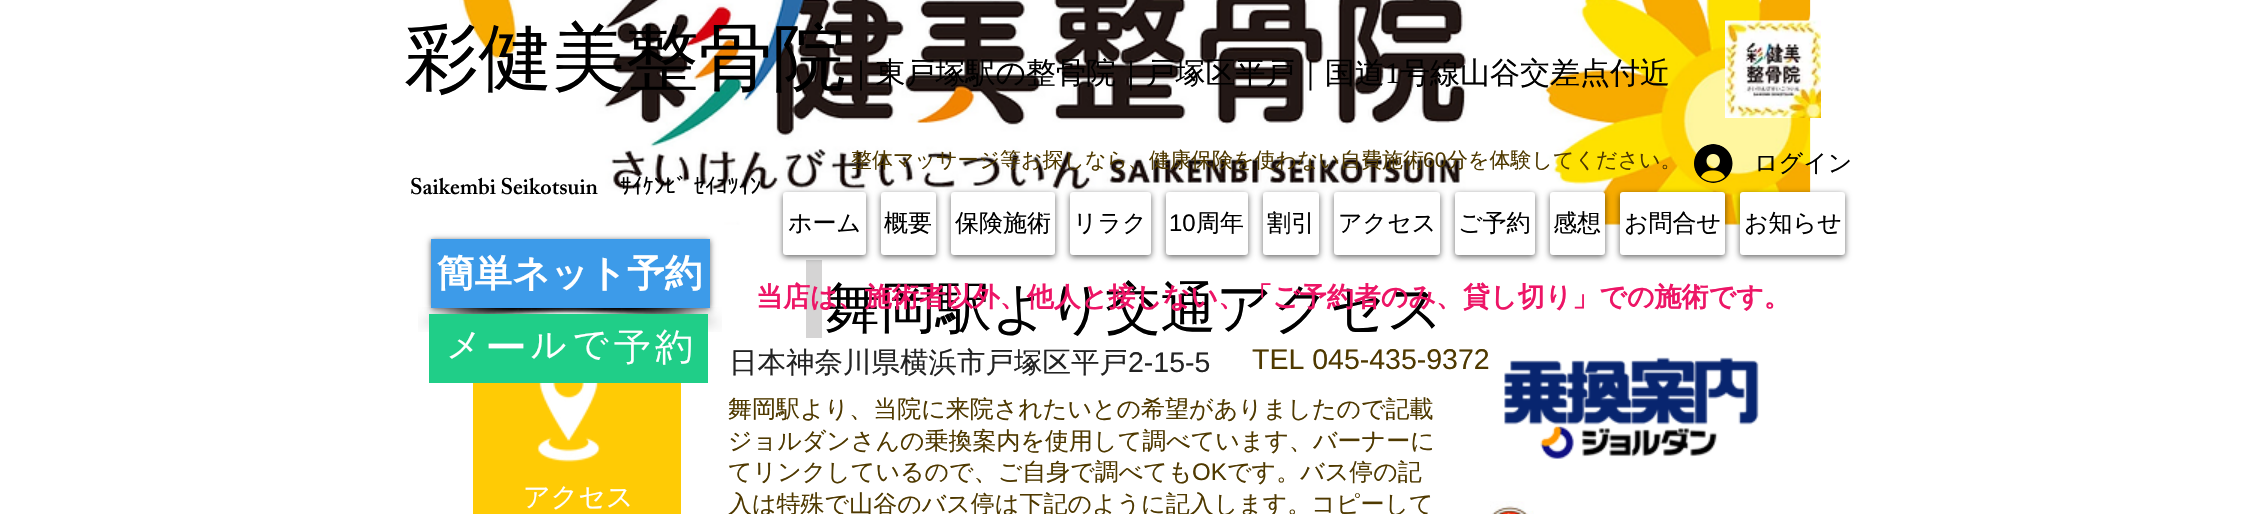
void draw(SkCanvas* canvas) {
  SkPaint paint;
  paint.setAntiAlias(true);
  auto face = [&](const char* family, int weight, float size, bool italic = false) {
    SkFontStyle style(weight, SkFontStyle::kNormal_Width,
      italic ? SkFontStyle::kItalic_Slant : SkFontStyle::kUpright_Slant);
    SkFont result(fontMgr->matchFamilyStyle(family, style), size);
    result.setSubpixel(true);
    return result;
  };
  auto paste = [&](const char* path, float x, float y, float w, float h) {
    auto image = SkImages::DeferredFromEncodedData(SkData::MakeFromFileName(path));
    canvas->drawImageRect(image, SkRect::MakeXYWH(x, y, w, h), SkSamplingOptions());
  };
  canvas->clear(0xffffffff);
  paste("img/5.png", 459, 0, 1352, 226);
  paste("img/1.png", 1725, 20, 96, 98);
  paste("img/2.png", 1694, 144, 39, 39);
  paint.setColor(0xffd5d4d4);
  canvas->drawRect(SkRect::MakeXYWH(806, 260, 16, 78), paint);
  paint.setColor(0x99000000);
  paint.setMaskFilter(SkMaskFilter::MakeBlur(kNormal_SkBlurStyle, 3));
  canvas->drawRoundRect(SkRect::MakeXYWH(783, 194, 83, 63), 3, 3, paint);
  paint.setMaskFilter(nullptr);
  paint.setColor(0xffffffff);
  canvas->drawRoundRect(SkRect::MakeXYWH(783, 192, 83, 63), 3, 3, paint);
  paint.setColor(0x99000000);
  paint.setMaskFilter(SkMaskFilter::MakeBlur(kNormal_SkBlurStyle, 3));
  canvas->drawRoundRect(SkRect::MakeXYWH(881, 194, 55, 63), 3, 3, paint);
  paint.setMaskFilter(nullptr);
  paint.setColor(0xffffffff);
  canvas->drawRoundRect(SkRect::MakeXYWH(881, 192, 55, 63), 3, 3, paint);
  paint.setColor(0x99000000);
  paint.setMaskFilter(SkMaskFilter::MakeBlur(kNormal_SkBlurStyle, 3));
  canvas->drawRoundRect(SkRect::MakeXYWH(951, 194, 104, 63), 3, 3, paint);
  paint.setMaskFilter(nullptr);
  paint.setColor(0xffffffff);
  canvas->drawRoundRect(SkRect::MakeXYWH(951, 192, 104, 63), 3, 3, paint);
  paint.setColor(0x99000000);
  paint.setMaskFilter(SkMaskFilter::MakeBlur(kNormal_SkBlurStyle, 3));
  canvas->drawRoundRect(SkRect::MakeXYWH(1070, 194, 81, 63), 3, 3, paint);
  paint.setMaskFilter(nullptr);
  paint.setColor(0xffffffff);
  canvas->drawRoundRect(SkRect::MakeXYWH(1070, 192, 81, 63), 3, 3, paint);
  paint.setColor(0x99000000);
  paint.setMaskFilter(SkMaskFilter::MakeBlur(kNormal_SkBlurStyle, 3));
  canvas->drawRoundRect(SkRect::MakeXYWH(1166, 194, 82, 63), 3, 3, paint);
  paint.setMaskFilter(nullptr);
  paint.setColor(0xffffffff);
  canvas->drawRoundRect(SkRect::MakeXYWH(1166, 192, 82, 63), 3, 3, paint);
  paint.setColor(0x99000000);
  paint.setMaskFilter(SkMaskFilter::MakeBlur(kNormal_SkBlurStyle, 3));
  canvas->drawRoundRect(SkRect::MakeXYWH(1263, 194, 56, 63), 3, 3, paint);
  paint.setMaskFilter(nullptr);
  paint.setColor(0xffffffff);
  canvas->drawRoundRect(SkRect::MakeXYWH(1263, 192, 56, 63), 3, 3, paint);
  paint.setColor(0x99000000);
  paint.setMaskFilter(SkMaskFilter::MakeBlur(kNormal_SkBlurStyle, 3));
  canvas->drawRoundRect(SkRect::MakeXYWH(1334, 194, 106, 63), 3, 3, paint);
  paint.setMaskFilter(nullptr);
  paint.setColor(0xffffffff);
  canvas->drawRoundRect(SkRect::MakeXYWH(1334, 192, 106, 63), 3, 3, paint);
  paint.setColor(0x99000000);
  paint.setMaskFilter(SkMaskFilter::MakeBlur(kNormal_SkBlurStyle, 3));
  canvas->drawRoundRect(SkRect::MakeXYWH(1455, 194, 80, 63), 3, 3, paint);
  paint.setMaskFilter(nullptr);
  paint.setColor(0xffffffff);
  canvas->drawRoundRect(SkRect::MakeXYWH(1455, 192, 80, 63), 3, 3, paint);
  paint.setColor(0x99000000);
  paint.setMaskFilter(SkMaskFilter::MakeBlur(kNormal_SkBlurStyle, 3));
  canvas->drawRoundRect(SkRect::MakeXYWH(1550, 194, 55, 63), 3, 3, paint);
  paint.setMaskFilter(nullptr);
  paint.setColor(0xffffffff);
  canvas->drawRoundRect(SkRect::MakeXYWH(1550, 192, 55, 63), 3, 3, paint);
  paint.setColor(0x99000000);
  paint.setMaskFilter(SkMaskFilter::MakeBlur(kNormal_SkBlurStyle, 3));
  canvas->drawRoundRect(SkRect::MakeXYWH(1620, 194, 105, 63), 3, 3, paint);
  paint.setMaskFilter(nullptr);
  paint.setColor(0xffffffff);
  canvas->drawRoundRect(SkRect::MakeXYWH(1620, 192, 105, 63), 3, 3, paint);
  paint.setColor(0x99000000);
  paint.setMaskFilter(SkMaskFilter::MakeBlur(kNormal_SkBlurStyle, 3));
  canvas->drawRoundRect(SkRect::MakeXYWH(1740, 194, 105, 63), 3, 3, paint);
  paint.setMaskFilter(nullptr);
  paint.setColor(0xffffffff);
  canvas->drawRoundRect(SkRect::MakeXYWH(1740, 192, 105, 63), 3, 3, paint);
  paste("img/3.png", 418, 307, 220, 25);
  paste("img/4.png", 532, 307, 190, 25);
  paint.setColor(0x99000000);
  paint.setMaskFilter(SkMaskFilter::MakeBlur(kNormal_SkBlurStyle, 3));
  canvas->drawRect(SkRect::MakeXYWH(431, 240, 279, 69), paint);
  paint.setMaskFilter(nullptr);
  {
    const struct { float x, y, w, h; SkColor color; } items[] = {
      {431, 239, 279, 69, 0xff3d9be9},
      {429, 314, 279, 69, 0xff20ce88},
      {473, 383, 208, 131, 0xffffcb05},
    };
    for (auto [x, y, w, h, color] : items) {
      paint.setColor(color);
      canvas->drawRect(SkRect::MakeXYWH(x, y, w, h), paint);
    }
  }
  paste("img/6.png", 537, 383, 64, 79);
  paste("img/7.png", 1504, 357, 255, 102);
  paste("img/8.png", 1490, 501, 44, 13);
  auto f0 = face("WenQuanYi Zen Hei", 500, 73.5f);
  paint.setColor(0xff000000);
  canvas->drawString("彩健美整骨院", 405, 83, f0, paint);
  auto f1 = face("WenQuanYi Zen Hei", 500, 30);
  canvas->drawString("｜東戸塚駅の整骨院｜戸塚区平戸｜国道", 846, 83, f1, paint);
  auto f2 = face("Liberation Serif", 400, 30);
  canvas->drawString("1", 1385, 83, f2, paint);
  canvas->drawString("号線山谷交差点付近", 1400, 83, f1, paint);
  auto f3 = face("WenQuanYi Zen Hei", 500, 21);
  paint.setColor(0xff4f3900);
  canvas->drawString("整体マッサージ等お探しなら、健康保険を使わない自費施術", 851, 167, f3, paint);
  auto f4 = face("Liberation Sans", 400, 21);
  canvas->drawString("60", 1423, 167, f4, paint);
  canvas->drawString("分を体験してください。", 1447, 167, f3, paint);
  auto f5 = face("WenQuanYi Zen Hei", 500, 24);
  paint.setColor(0xff000000);
  canvas->drawString("ログイン", 1754, 171, f5, paint);
  auto f6 = face("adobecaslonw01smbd", 600, 22.5f);
  canvas->drawString("Saikembi Seikotsuin", 410, 194, f6, paint);
  auto f7 = face("IPAPGothic", 400, 22.5f);
  canvas->drawString("ｻｲｹﾝﾋﾞ ｾｲｺﾂｲﾝ", 620, 194, f7, paint);
  {
    const struct { const char* s; float x, y; } items[] = {
      {"ホーム", 788, 231},
      {"概要", 884, 231},
      {"保険施術", 955, 231},
      {"リラク", 1073, 231},
    };
    for (auto [s, x, y] : items) {
      canvas->drawString(s, x, y, f5, paint);
    }
  }
  auto f8 = face("Liberation Sans", 400, 24);
  canvas->drawString("10", 1169, 231, f8, paint);
  {
    const struct { const char* s; float x, y; } items[] = {
      {"周年", 1196, 231},
      {"割引", 1267, 231},
      {"アクセス", 1338, 231},
      {"ご予約", 1458, 231},
      {"感想", 1553, 231},
      {"お問合せ", 1624, 231},
      {"お知らせ", 1744, 231},
    };
    for (auto [s, x, y] : items) {
      canvas->drawString(s, x, y, f5, paint);
    }
  }
  auto f9 = face("WenQuanYi Zen Hei", 700, 37.5f);
  paint.setColor(0xffffffff);
  canvas->drawString("簡単ネット予約", 437, 286, f9, paint);
  auto f10 = face("Dotum", 400, 42);
  canvas->drawString("メ", 443, 362, f10, paint);
  auto f11 = face("WenQuanYi Zen Hei", 500, 42);
  canvas->drawString("ー", 485, 362, f11, paint);
  canvas->drawString("ルで予約", 527, 362, f10, paint);
  auto f12 = face("WenQuanYi Zen Hei", 500, 28.5f);
  paint.setColor(0xff232323);
  canvas->drawString("日本神奈川県横浜市戸塚区平戸", 729, 372, f12, paint);
  auto f13 = face("Liberation Sans", 400, 28.5f);
  canvas->drawString("2-15-5", 1128, 372, f13, paint);
  paint.setColor(0xff4f3900);
  canvas->drawString("TEL 045-435-9372", 1252, 369, f13, paint);
  auto f14 = face("WenQuanYi Zen Hei", 500, 55.5f);
  paint.setColor(0xff000000);
  canvas->drawString("舞岡駅より交通アクセス", 825, 327, f14, paint);
  auto f15 = face("WenQuanYi Zen Hei", 700, 27);
  paint.setColor(0xffed1566);
  canvas->drawString("当店は、施術者以外、他人と接しない、「ご予約者のみ、貸し切り」での施術です。", 756, 306, f15, paint);
  auto f16 = face("WenQuanYi Zen Hei", 500, 27);
  paint.setColor(0xffffffff);
  canvas->drawString("アクセス", 523, 506, f16, paint);
  paint.setColor(0xff4f3900);
  {
    const struct { const char* s; float x, y; } items[] = {
      {"舞岡駅より、当院に来院されたいとの希望がありましたので記載", 728, 417},
      {"ジョルダンさんの乗換案内を使用して調べています、バーナーに", 728, 449},
      {"てリンクしているので、ご自身で調べても", 728, 480},
    };
    for (auto [s, x, y] : items) {
      canvas->drawString(s, x, y, f5, paint);
    }
  }
  canvas->drawString("OK", 1192, 480, f8, paint);
  canvas->drawString("です。バス停の記", 1227, 480, f5, paint);
  canvas->drawString("入は特殊で山谷のバス停は下記のように記入します。コピーして", 728, 512, f5, paint);
}
